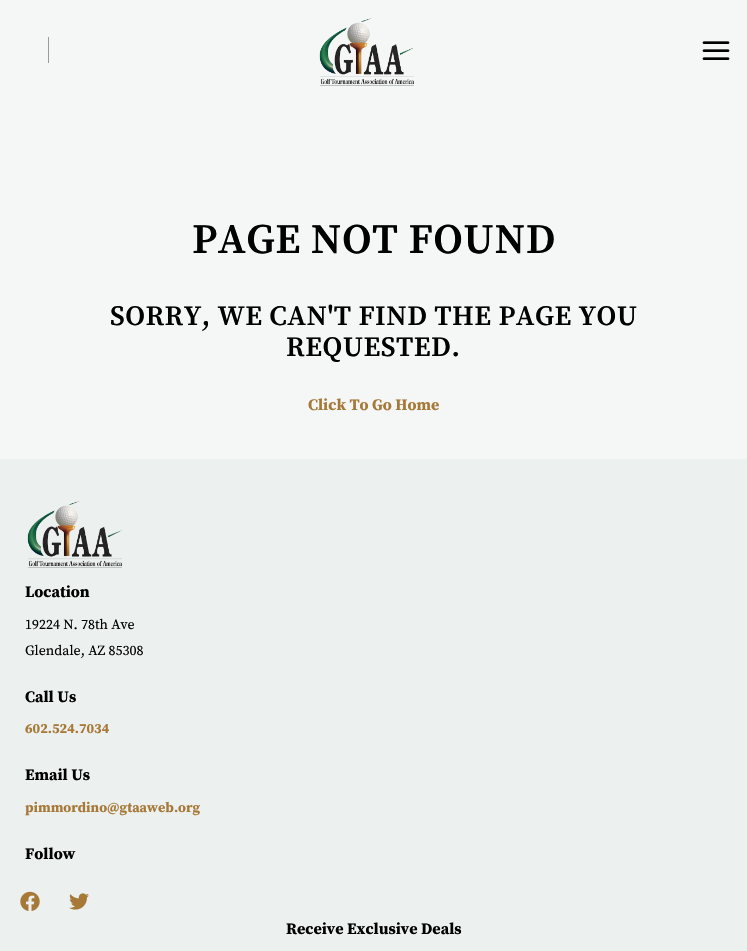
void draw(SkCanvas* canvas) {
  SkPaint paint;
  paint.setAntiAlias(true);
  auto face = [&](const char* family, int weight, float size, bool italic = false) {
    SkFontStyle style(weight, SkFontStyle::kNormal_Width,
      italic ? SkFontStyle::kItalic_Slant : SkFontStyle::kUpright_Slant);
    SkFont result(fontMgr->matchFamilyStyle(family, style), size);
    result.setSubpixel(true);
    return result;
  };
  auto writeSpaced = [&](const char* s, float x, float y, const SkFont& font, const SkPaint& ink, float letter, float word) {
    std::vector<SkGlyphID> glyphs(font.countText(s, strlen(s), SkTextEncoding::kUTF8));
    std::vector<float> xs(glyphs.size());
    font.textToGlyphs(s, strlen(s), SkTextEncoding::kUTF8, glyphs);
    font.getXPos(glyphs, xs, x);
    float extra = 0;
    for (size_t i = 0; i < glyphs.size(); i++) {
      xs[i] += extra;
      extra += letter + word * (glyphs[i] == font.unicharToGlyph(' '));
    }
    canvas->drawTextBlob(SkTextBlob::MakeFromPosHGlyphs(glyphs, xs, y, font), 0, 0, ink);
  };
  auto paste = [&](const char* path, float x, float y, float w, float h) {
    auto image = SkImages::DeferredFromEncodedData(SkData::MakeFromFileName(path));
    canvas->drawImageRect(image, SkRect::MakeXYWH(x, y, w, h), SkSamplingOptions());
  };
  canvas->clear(0xfff5f7f6);
  paint.setColor(0xff989b9f);
  canvas->drawRect(SkRect::MakeXYWH(48, 37, 1, 26), paint);
  paste("img/1.png", 319, 18, 95, 68);
  paste("img/2.png", 702, 41, 28, 19);
  paint.setColor(0xffecf0ee);
  canvas->drawRect(SkRect::MakeXYWH(0, 459, 747, 492), paint);
  paste("img/3.png", 27, 501, 95, 67);
  paste("img/4.png", 20, 891, 20, 20);
  paste("img/5.png", 69, 893, 20, 17);
  auto f0 = face("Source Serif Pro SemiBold", 600, 42);
  paint.setColor(0xff000000);
  writeSpaced("PAGE NOT FOUND", 192, 253, f0, paint, 0.5f, 0);
  auto f1 = face("Source Serif Pro SemiBold", 600, 28);
  writeSpaced("SORRY, WE CAN'T FIND THE PAGE YOU", 110, 325, f1, paint, 0.5f, 0);
  writeSpaced("REQUESTED.", 286, 356, f1, paint, 0.5f, 0);
  auto f2 = face("Source Serif Pro", 700, 16);
  paint.setColor(0xffa77939);
  canvas->drawString("Click To Go Home", 308, 410, f2, paint);
  paint.setColor(0xff000000);
  canvas->drawString("Location", 25, 597, f2, paint);
  auto f3 = face("Source Serif Pro", 400, 14);
  canvas->drawString("19224 N. 78th Ave", 25, 629, f3, paint);
  canvas->drawString("Glendale, AZ 85308", 25, 655, f3, paint);
  canvas->drawString("Call Us", 25, 702, f2, paint);
  auto f4 = face("Source Serif Pro", 700, 14);
  paint.setColor(0xffa77939);
  canvas->drawString("602.524.7034", 25, 733, f4, paint);
  paint.setColor(0xff000000);
  canvas->drawString("Email Us", 25, 780, f2, paint);
  paint.setColor(0xffa77939);
  canvas->drawString("pimmordino@gtaaweb.org", 25, 812, f4, paint);
  paint.setColor(0xff000000);
  canvas->drawString("Follow", 25, 859, f2, paint);
  canvas->drawString("Receive Exclusive Deals", 286, 934, f2, paint);
}
